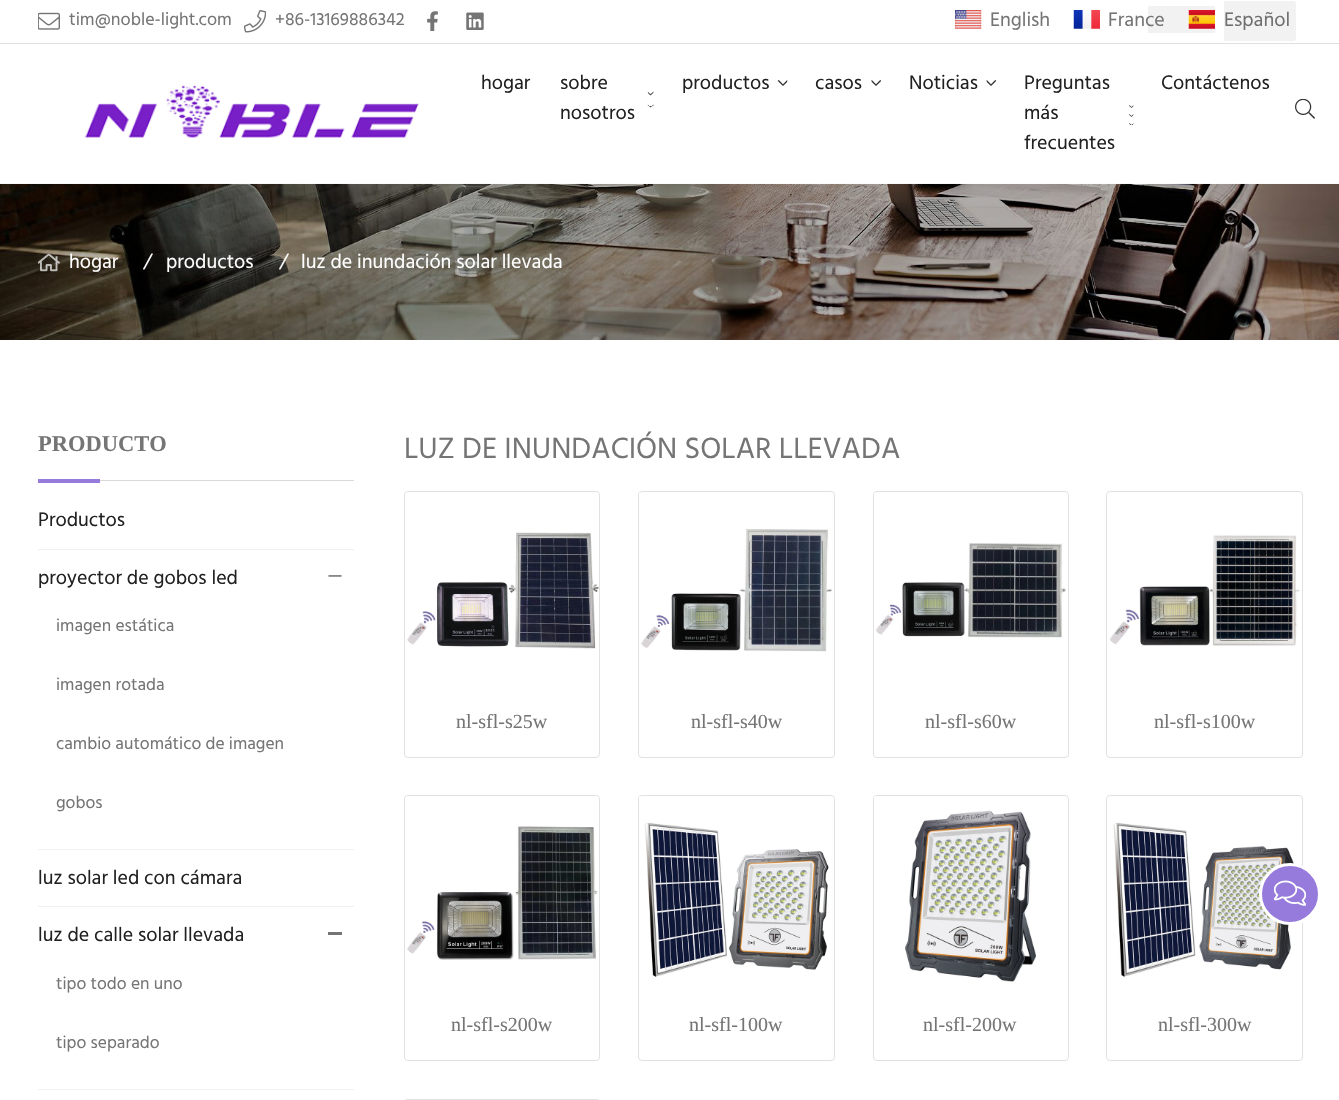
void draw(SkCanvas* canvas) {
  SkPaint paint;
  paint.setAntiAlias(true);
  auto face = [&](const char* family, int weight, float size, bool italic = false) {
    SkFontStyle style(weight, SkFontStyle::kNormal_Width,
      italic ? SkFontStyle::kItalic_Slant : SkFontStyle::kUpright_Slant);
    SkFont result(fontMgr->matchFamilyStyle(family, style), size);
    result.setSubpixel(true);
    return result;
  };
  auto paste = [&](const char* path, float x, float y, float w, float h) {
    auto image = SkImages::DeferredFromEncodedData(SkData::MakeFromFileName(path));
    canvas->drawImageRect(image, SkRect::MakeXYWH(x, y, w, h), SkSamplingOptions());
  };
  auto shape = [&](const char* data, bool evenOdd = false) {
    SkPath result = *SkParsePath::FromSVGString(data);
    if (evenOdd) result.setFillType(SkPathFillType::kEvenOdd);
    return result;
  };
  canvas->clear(0xffffffff);
  paste("img/15.png", 0, 183, 1339, 157);
  paint.setColor(0x80ffffff);
  canvas->drawRect(SkRect::MakeXYWH(0, 183, 1339, 1), paint);
  paint.setColor(0xffe0e0e0);
  canvas->drawRect(SkRect::MakeXYWH(0, 43, 1339, 1), paint);
  paste("img/1.png", 38, 12, 22, 18);
  paste("img/2.png", 244, 10, 22, 23);
  paste("img/3.png", 427, 11, 11, 20);
  paste("img/4.png", 466, 12, 18, 18);
  paste("img/5.png", 955, 10, 27, 19);
  paste("img/6.png", 1073, 10, 27, 19);
  paint.setColor(0x0d000000);
  canvas->drawRect(SkRect::MakeXYWH(1148, 6, 67, 27), paint);
  paint.setColor(0xfff2f2f2);
  canvas->drawPath(shape("M1224 1H1293.5C1295 1 1296 2 1296 3.5V38.5C1296 40 1295 41 1293.5 41H1224Z"), paint);
  paste("img/7.png", 1188, 10, 27, 19);
  paste("img/8.png", 84, 85, 336, 53);
  paste("img/9.png", 647, 91, 7, 17);
  paste("img/10.png", 777, 80, 11, 6);
  paste("img/11.png", 871, 80, 10, 6);
  paste("img/12.png", 986, 80, 11, 6);
  paste("img/13.png", 1129, 105, 5, 20);
  paste("img/14.png", 1295, 99, 20, 20);
  paste("img/16.png", 38, 253, 22, 19);
  {
    const struct { float x, y, w, h; SkColor color; } items[] = {
      {100, 480, 254, 1, 0xffd9d9d9},
      {38, 479, 62, 4, 0xff967adc},
      {38, 549, 316, 1, 0xfff1f1f1},
      {38, 849, 316, 1, 0xfff1f1f1},
    };
    for (auto [x, y, w, h, color] : items) {
      paint.setColor(color);
      canvas->drawRect(SkRect::MakeXYWH(x, y, w, h), paint);
    }
  }
  paste("img/17.png", 328, 575, 14, 2);
  {
    const struct { float x, y, w, h; SkColor color; } items[] = {
      {38, 906, 316, 1, 0xfff1f1f1},
      {38, 1089, 316, 1, 0xfff1f1f1},
      {328, 932, 14, 3, 0xff757575},
    };
    for (auto [x, y, w, h, color] : items) {
      paint.setColor(color);
      canvas->drawRect(SkRect::MakeXYWH(x, y, w, h), paint);
    }
  }
  paint.setStroke(true);
  paint.setStrokeWidth(1);
  paint.setColor(0xffe1e1e1);
  canvas->drawRoundRect(SkRect::MakeXYWH(404.5f, 491.5f, 195, 266), 3.5f, 3.5f, paint);
  paste("img/18.png", 405, 493, 194, 156);
  canvas->drawRoundRect(SkRect::MakeXYWH(638.5f, 491.5f, 196, 266), 3.5f, 3.5f, paint);
  paste("img/19.png", 639, 493, 193, 159);
  canvas->drawRoundRect(SkRect::MakeXYWH(873.5f, 491.5f, 195, 266), 3.5f, 3.5f, paint);
  paste("img/20.png", 874, 493, 192, 145);
  canvas->drawRoundRect(SkRect::MakeXYWH(1106.5f, 491.5f, 196, 266), 3.5f, 3.5f, paint);
  paste("img/21.png", 1109, 535, 191, 111);
  canvas->drawRoundRect(SkRect::MakeXYWH(404.5f, 795.5f, 195, 265), 3.5f, 3.5f, paint);
  paste("img/22.png", 405, 796, 194, 164);
  canvas->drawRoundRect(SkRect::MakeXYWH(638.5f, 795.5f, 196, 265), 3.5f, 3.5f, paint);
  paste("img/23.png", 639, 796, 195, 181);
  canvas->drawRoundRect(SkRect::MakeXYWH(873.5f, 795.5f, 195, 265), 3.5f, 3.5f, paint);
  paste("img/24.png", 874, 796, 162, 186);
  canvas->drawRoundRect(SkRect::MakeXYWH(1106.5f, 795.5f, 196, 265), 3.5f, 3.5f, paint);
  paste("img/25.png", 1113, 822, 182, 155);
  canvas->drawRoundRect(SkRect::MakeXYWH(404.5f, 1099.5f, 195, 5), 3.5f, 3.5f, paint);
  paint.setStroke(false);
  paint.setColor(0xff967adc);
  canvas->drawCircle(1290, 894, 29.5f, paint);
  paint.setStroke(true);
  paint.setStrokeWidth(3);
  paint.setColor(0xffffffff);
  canvas->drawCircle(1290, 894, 29.5f, paint);
  paste("img/26.png", 1274, 880, 32, 26);
  auto f0 = face("Hind", 400, 18);
  paint.setStroke(false);
  paint.setColor(0xff757575);
  canvas->drawString("tim@noble-light.com", 69, 25, f0, paint);
  canvas->drawString("+86-13169886342", 275, 25, f0, paint);
  auto f1 = face("Hind", 400, 20);
  canvas->drawString("English", 990, 26, f1, paint);
  canvas->drawString("France", 1108, 26, f1, paint);
  paint.setColor(0xff6f6f6f);
  canvas->drawString("Español", 1224, 26, f1, paint);
  paint.setColor(0xff212121);
  {
    const struct { const char* s; float x, y; } items[] = {
      {"hogar", 481, 89},
      {"sobre", 560, 89},
      {"nosotros", 560, 119},
      {"productos", 682, 89},
      {"casos", 815, 89},
      {"Noticias", 909, 89},
      {"Preguntas", 1024, 89},
      {"más", 1024, 119},
      {"frecuentes", 1024, 149},
      {"Contáctenos", 1161, 89},
    };
    for (auto [s, x, y] : items) {
      canvas->drawString(s, x, y, f1, paint);
    }
  }
  paint.setColor(0xffffffff);
  canvas->drawString("hogar", 69, 268, f1, paint);
  auto f2 = face("Roboto", 400, 20, true);
  canvas->drawString("/", 144, 268, f2, paint);
  canvas->drawString("productos", 166, 268, f1, paint);
  canvas->drawString("/", 280, 268, f2, paint);
  canvas->drawString("luz de inundación solar llevada", 301, 268, f1, paint);
  auto f3 = face("Liberation Serif", 700, 22.5f);
  paint.setColor(0xff757575);
  canvas->drawString("PRODUCTO", 38, 451, f3, paint);
  paint.setColor(0xff212121);
  canvas->drawString("Productos", 38, 526, f1, paint);
  canvas->drawString("proyector de gobos led", 38, 584, f1, paint);
  auto f4 = face("Hind", 400, 17.5f);
  paint.setColor(0xff757575);
  {
    const struct { const char* s; float x, y; } items[] = {
      {"imagen estática", 56, 631},
      {"imagen rotada", 56, 690},
      {"cambio automático de imagen", 56, 749},
      {"gobos", 56, 808},
    };
    for (auto [s, x, y] : items) {
      canvas->drawString(s, x, y, f4, paint);
    }
  }
  paint.setColor(0xff212121);
  canvas->drawString("luz solar led con cámara", 38, 884, f1, paint);
  canvas->drawString("luz de calle solar llevada", 38, 941, f1, paint);
  paint.setColor(0xff757575);
  canvas->drawString("tipo todo en uno", 56, 989, f4, paint);
  canvas->drawString("tipo separado", 56, 1048, f4, paint);
  auto f5 = face("Hind", 400, 30);
  canvas->drawString("LUZ DE INUNDACIÓN SOLAR LLEVADA", 404, 458, f5, paint);
  auto f6 = face("Liberation Serif", 400, 20);
  {
    const struct { const char* s; float x, y; } items[] = {
      {"nl-sfl-s25w", 456, 728},
      {"nl-sfl-s40w", 691, 728},
      {"nl-sfl-s60w", 925, 728},
      {"nl-sfl-s100w", 1154, 728},
      {"nl-sfl-s200w", 451, 1031},
      {"nl-sfl-100w", 689, 1031},
      {"nl-sfl-200w", 923, 1031},
      {"nl-sfl-300w", 1158, 1031},
    };
    for (auto [s, x, y] : items) {
      canvas->drawString(s, x, y, f6, paint);
    }
  }
}
